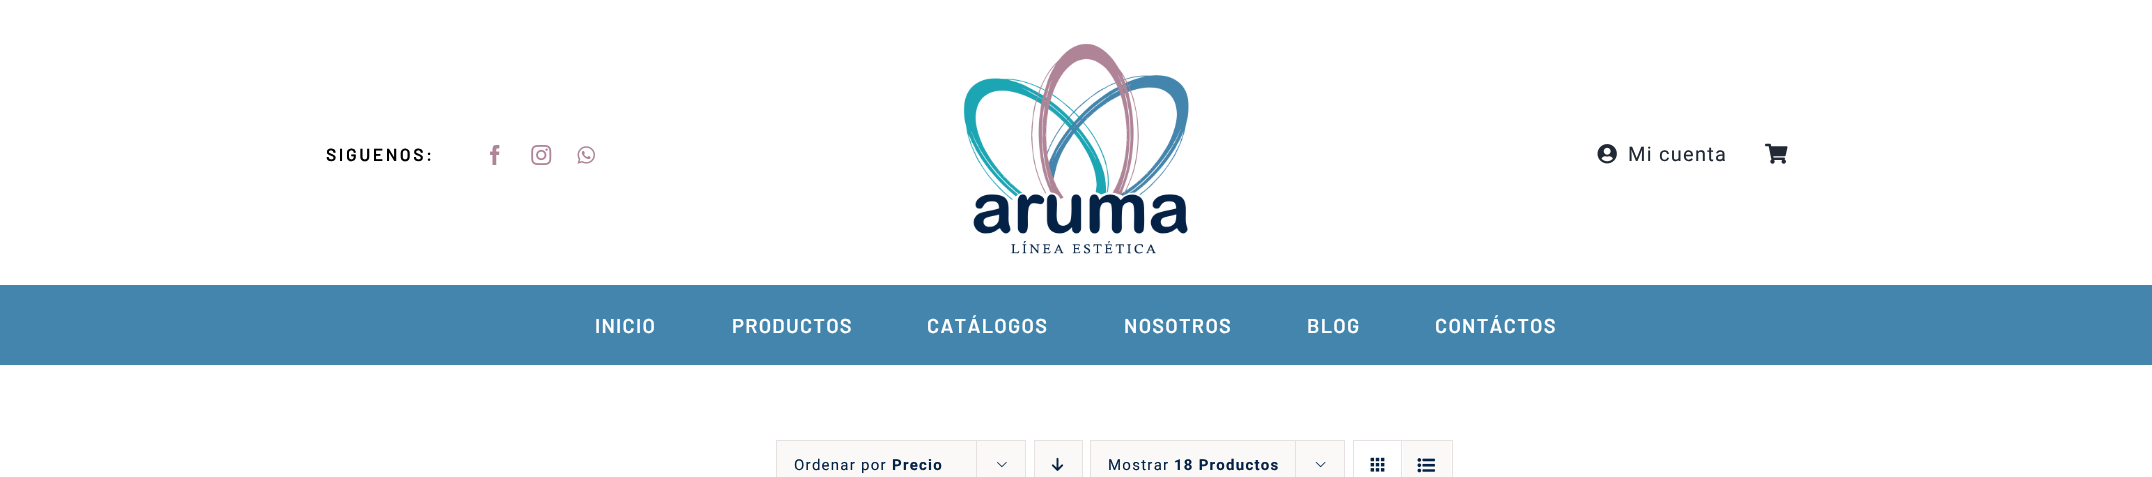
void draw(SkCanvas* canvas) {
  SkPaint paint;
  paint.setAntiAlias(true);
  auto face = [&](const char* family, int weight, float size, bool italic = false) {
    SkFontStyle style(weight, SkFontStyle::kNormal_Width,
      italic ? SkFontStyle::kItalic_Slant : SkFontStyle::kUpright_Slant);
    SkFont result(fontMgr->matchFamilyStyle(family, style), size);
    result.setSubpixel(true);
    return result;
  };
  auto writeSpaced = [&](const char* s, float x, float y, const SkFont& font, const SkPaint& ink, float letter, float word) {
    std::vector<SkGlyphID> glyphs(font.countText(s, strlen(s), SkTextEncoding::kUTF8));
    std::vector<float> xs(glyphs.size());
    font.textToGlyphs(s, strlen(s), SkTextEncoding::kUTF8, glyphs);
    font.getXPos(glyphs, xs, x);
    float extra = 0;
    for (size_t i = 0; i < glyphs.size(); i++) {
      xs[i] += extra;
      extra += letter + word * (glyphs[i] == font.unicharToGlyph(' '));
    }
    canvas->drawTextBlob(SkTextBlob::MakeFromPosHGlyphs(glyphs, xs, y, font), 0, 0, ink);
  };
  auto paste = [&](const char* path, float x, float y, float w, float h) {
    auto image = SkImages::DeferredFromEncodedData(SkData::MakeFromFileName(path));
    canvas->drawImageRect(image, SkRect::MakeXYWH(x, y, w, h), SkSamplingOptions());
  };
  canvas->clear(0xffffffff);
  paste("img/1.png", 490, 145, 10, 20);
  paste("img/2.png", 531, 145, 21, 20);
  paste("img/3.png", 577, 146, 18, 18);
  paste("img/4.png", 963, 43, 226, 211);
  paste("img/5.png", 1597, 144, 20, 20);
  paste("img/6.png", 1765, 143, 23, 21);
  paint.setColor(0xff4385ac);
  canvas->drawRect(SkRect::MakeXYWH(0, 285, 2152, 80), paint);
  paint.setColor(0xfffaf9f7);
  canvas->drawRect(SkRect::MakeXYWH(776.5f, 440.5f, 249, 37), paint);
  paint.setStroke(true);
  paint.setStrokeWidth(1);
  paint.setColor(0xffe7e1df);
  canvas->drawRect(SkRect::MakeXYWH(776.5f, 440.5f, 249, 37), paint);
  paint.setStroke(false);
  canvas->drawRect(SkRect::MakeXYWH(976, 440, 1, 37), paint);
  paste("img/7.png", 997, 462, 10, 6);
  paint.setColor(0xfffaf9f7);
  canvas->drawRect(SkRect::MakeXYWH(1034.5f, 440.5f, 48, 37), paint);
  paint.setStroke(true);
  paint.setColor(0xffe7e1df);
  canvas->drawRect(SkRect::MakeXYWH(1034.5f, 440.5f, 48, 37), paint);
  paste("img/8.png", 1051, 457, 13, 14);
  paint.setStroke(false);
  paint.setColor(0xfffaf9f7);
  canvas->drawRect(SkRect::MakeXYWH(1090.5f, 440.5f, 254, 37), paint);
  paint.setStroke(true);
  paint.setColor(0xffe7e1df);
  canvas->drawRect(SkRect::MakeXYWH(1090.5f, 440.5f, 254, 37), paint);
  paint.setStroke(false);
  canvas->drawRect(SkRect::MakeXYWH(1295, 440, 1, 37), paint);
  paste("img/9.png", 1315, 462, 11, 6);
  paint.setStroke(true);
  canvas->drawRect(SkRect::MakeXYWH(1353.5f, 440.5f, 99, 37), paint);
  paint.setStroke(false);
  canvas->drawRect(SkRect::MakeXYWH(1401, 441, 1, 36), paint);
  paste("img/10.png", 1370, 457, 15, 15);
  paint.setColor(0xfffaf9f7);
  canvas->drawRect(SkRect::MakeXYWH(1403, 441, 48, 36), paint);
  paste("img/11.png", 1417, 458, 18, 15);
  auto f0 = face("Barlow", 600, 17.5f);
  paint.setColor(0xff000000);
  writeSpaced("SIGUENOS:", 326, 161, f0, paint, 2.5f, 0);
  auto f1 = face("Roboto", 400, 20);
  paint.setColor(0xff212934);
  writeSpaced("Mi cuenta", 1628, 161, f1, paint, 1.25f, 0);
  auto f2 = face("Barlow", 600, 20);
  paint.setColor(0xffffffff);
  {
    const struct { const char* s; float x, y; } items[] = {
      {"INICIO", 595, 333},
      {"PRODUCTOS", 732, 333},
      {"CATÁLOGOS", 927, 333},
      {"NOSOTROS", 1124, 333},
      {"BLOG", 1307, 333},
      {"CONTÁCTOS", 1435, 333},
    };
    for (auto [s, x, y] : items) {
      writeSpaced(s, x, y, f2, paint, 1.25f, 0);
    }
  }
  auto f3 = face("Roboto", 400, 15);
  paint.setColor(0xff032246);
  writeSpaced("Ordenar por", 794, 470, f3, paint, 1.25f, 0);
  auto f4 = face("Roboto", 700, 15);
  writeSpaced("Precio", 892, 470, f4, paint, 1.25f, 0);
  writeSpaced("Mostrar", 1108, 470, f3, paint, 1.25f, 0);
  writeSpaced("18 Productos", 1174, 470, f4, paint, 1.25f, 0);
}
